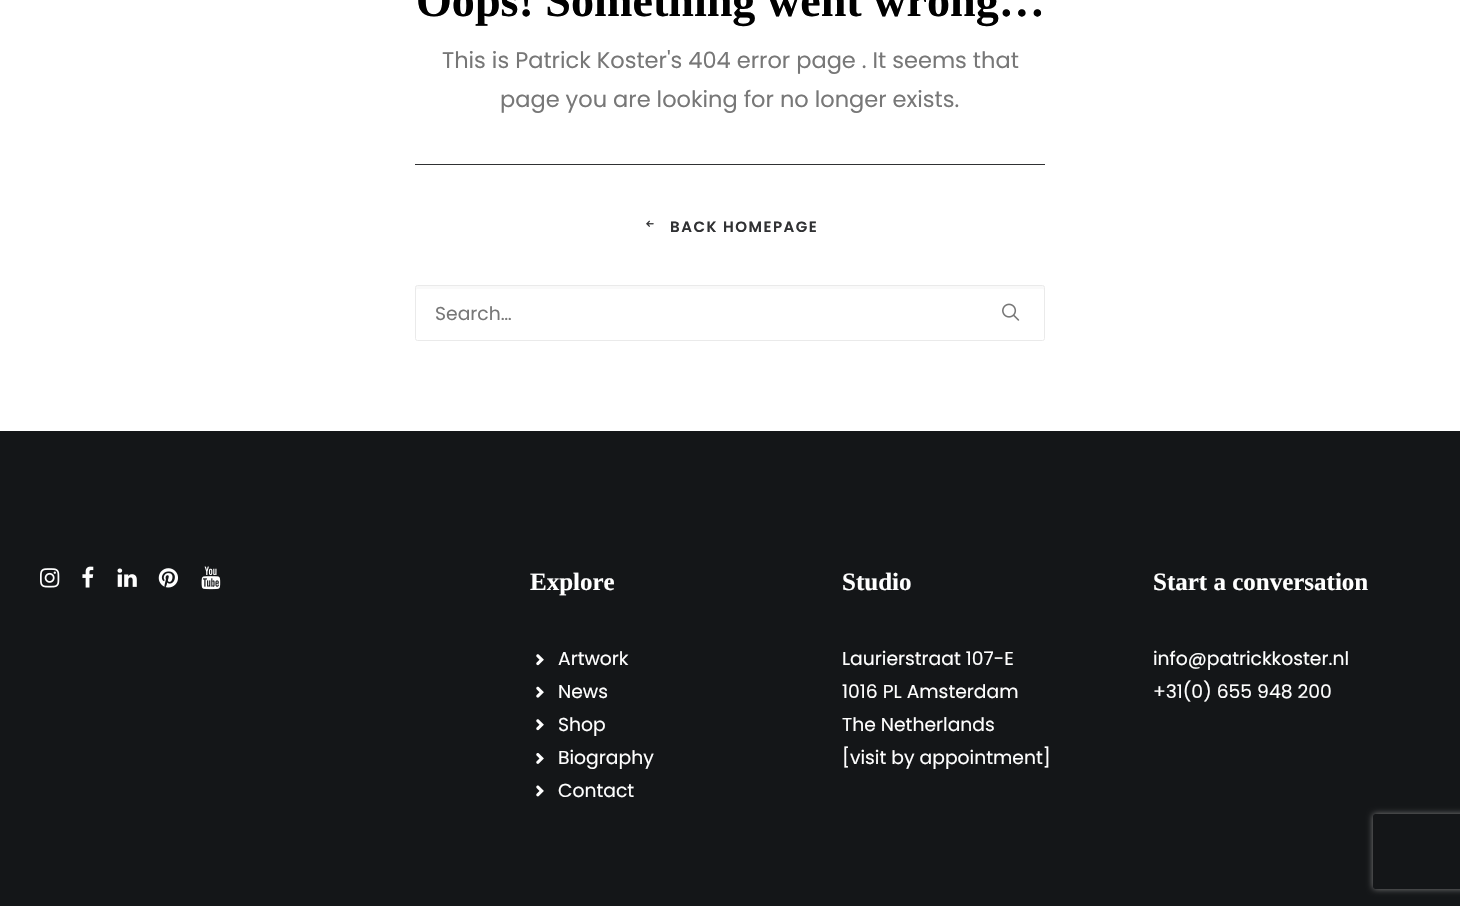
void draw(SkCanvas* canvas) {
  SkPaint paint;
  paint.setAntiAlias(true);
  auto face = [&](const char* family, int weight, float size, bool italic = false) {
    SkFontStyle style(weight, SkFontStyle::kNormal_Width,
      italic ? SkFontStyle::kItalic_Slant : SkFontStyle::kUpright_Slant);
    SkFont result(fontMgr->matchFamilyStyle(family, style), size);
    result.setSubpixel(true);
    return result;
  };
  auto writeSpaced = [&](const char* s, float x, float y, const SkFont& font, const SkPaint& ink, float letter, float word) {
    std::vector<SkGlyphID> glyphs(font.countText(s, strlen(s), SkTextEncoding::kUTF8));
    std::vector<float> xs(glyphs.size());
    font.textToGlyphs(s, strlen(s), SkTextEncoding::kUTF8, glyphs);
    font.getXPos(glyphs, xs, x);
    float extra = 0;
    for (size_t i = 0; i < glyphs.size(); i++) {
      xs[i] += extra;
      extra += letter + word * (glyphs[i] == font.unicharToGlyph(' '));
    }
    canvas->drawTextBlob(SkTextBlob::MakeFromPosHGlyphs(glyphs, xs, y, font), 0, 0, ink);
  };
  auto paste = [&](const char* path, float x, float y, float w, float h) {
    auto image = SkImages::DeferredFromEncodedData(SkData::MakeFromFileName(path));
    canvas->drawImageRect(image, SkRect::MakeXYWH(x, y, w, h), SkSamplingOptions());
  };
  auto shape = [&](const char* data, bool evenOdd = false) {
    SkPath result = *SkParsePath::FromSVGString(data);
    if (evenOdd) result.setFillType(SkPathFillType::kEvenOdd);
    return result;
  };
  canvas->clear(0xffffffff);
  paint.setColor(0xff303133);
  canvas->drawRect(SkRect::MakeXYWH(415, 164, 630, 1), paint);
  paste("img/1.png", 646, 220, 8, 7);
  paint.setColor(0xfff9f9f9);
  canvas->drawPath(shape("M418 289H1042C1043 289 1044 289 1044 290V286H417C415 286 416 289 416 290C416 289 417 289 418 289Z"), paint);
  paint.setStroke(true);
  paint.setStrokeWidth(1);
  paint.setColor(0xffeaeaea);
  canvas->drawRoundRect(SkRect::MakeXYWH(415.5f, 285.5f, 629, 55), 2, 2, paint);
  paste("img/2.png", 1002, 303, 18, 18);
  paint.setStroke(false);
  paint.setColor(0xff141618);
  canvas->drawRect(SkRect::MakeXYWH(0, 431, 1460, 475), paint);
  paste("img/3.png", 40, 568, 20, 20);
  paste("img/4.png", 82, 566, 12, 22);
  paste("img/5.png", 117, 568, 20, 19);
  paste("img/6.png", 158, 568, 20, 20);
  paste("img/7.png", 201, 566, 20, 24);
  paste("img/8.png", 536, 654, 8, 12);
  paste("img/9.png", 536, 686, 8, 12);
  paste("img/8.png", 536, 719, 8, 12);
  paste("img/10.png", 536, 753, 8, 11);
  paste("img/11.png", 536, 785, 8, 12);
  canvas->save();
  canvas->clipPath(shape("M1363 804H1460V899H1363ZM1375.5 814H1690.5C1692 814 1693 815 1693 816.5V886.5C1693 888 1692 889 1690.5 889H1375.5C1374 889 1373 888 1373 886.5V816.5C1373 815 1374 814 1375.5 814Z", true), true);
  paint.setColor(0xff808080);
  paint.setMaskFilter(SkMaskFilter::MakeBlur(kNormal_SkBlurStyle, 3));
  canvas->drawRoundRect(SkRect::MakeXYWH(1373, 814, 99, 75), 2.5f, 2.5f, paint);
  paint.setMaskFilter(nullptr);
  canvas->restore();
  auto f0 = face("Liberation Serif", 700, 46.1f);
  paint.setColor(0xff000000);
  canvas->drawString("Oops! Something went wrong…", 416, 16, f0, paint);
  auto f1 = face("Poppins", 400, 22.5f);
  paint.setColor(0xff777777);
  canvas->drawString("This is Patrick Koster's 404 error page . It seems that", 442, 68, f1, paint);
  canvas->drawString("page you are looking for no longer exists.", 500, 107, f1, paint);
  auto f2 = face("Poppins", 600, 15);
  paint.setColor(0xff303133);
  writeSpaced("BACK HOMEPAGE", 670, 232, f2, paint, 1.5f, 0);
  auto f3 = face("Poppins", 400, 18.75f);
  paint.setColor(0xff777777);
  canvas->drawString("Search…", 435, 320, f3, paint);
  auto f4 = face("Liberation Serif", 700, 25);
  paint.setColor(0xffffffff);
  canvas->drawString("Explore", 530, 590, f4, paint);
  {
    const struct { const char* s; float x, y; } items[] = {
      {"Artwork", 558, 665},
      {"News", 558, 698},
      {"Shop", 558, 731},
      {"Biography", 558, 764},
      {"Contact", 558, 797},
    };
    for (auto [s, x, y] : items) {
      canvas->drawString(s, x, y, f3, paint);
    }
  }
  canvas->drawString("Studio", 842, 590, f4, paint);
  {
    const struct { const char* s; float x, y; } items[] = {
      {"Laurierstraat 107-E", 842, 665},
      {"1016 PL Amsterdam", 842, 698},
      {"The Netherlands", 842, 731},
      {"[visit by appointment]", 842, 764},
    };
    for (auto [s, x, y] : items) {
      canvas->drawString(s, x, y, f3, paint);
    }
  }
  canvas->drawString("Start a conversation", 1153, 590, f4, paint);
  canvas->drawString("info@patrickkoster.nl", 1153, 665, f3, paint);
  canvas->drawString("+31(0) 655 948 200", 1153, 698, f3, paint);
}
